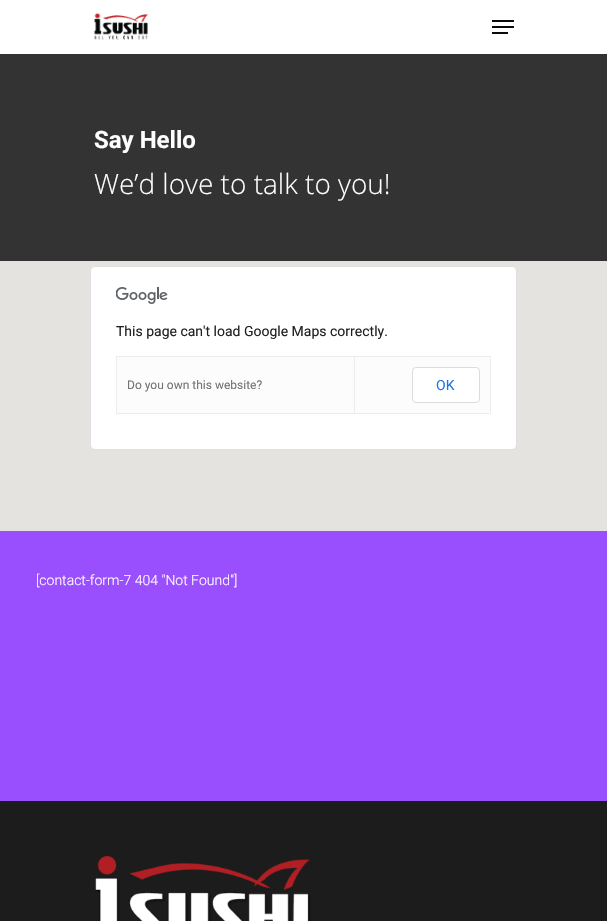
void draw(SkCanvas* canvas) {
  SkPaint paint;
  paint.setAntiAlias(true);
  auto face = [&](const char* family, int weight, float size, bool italic = false) {
    SkFontStyle style(weight, SkFontStyle::kNormal_Width,
      italic ? SkFontStyle::kItalic_Slant : SkFontStyle::kUpright_Slant);
    SkFont result(fontMgr->matchFamilyStyle(family, style), size);
    result.setSubpixel(true);
    return result;
  };
  auto paste = [&](const char* path, float x, float y, float w, float h) {
    auto image = SkImages::DeferredFromEncodedData(SkData::MakeFromFileName(path));
    canvas->drawImageRect(image, SkRect::MakeXYWH(x, y, w, h), SkSamplingOptions());
  };
  canvas->clear(0xffffffff);
  paste("img/1.png", 94, 13, 54, 27);
  {
    const struct { float x, y, w, h; SkColor color; } items[] = {
      {492, 20, 22, 2, 0xff0a0a0a},
      {492, 32, 16, 2, 0xff0a0a0a},
      {492, 26, 22, 2, 0xff0a0a0a},
      {0, 54, 607, 207, 0xff333333},
      {0, 261, 607, 270, 0xffe5e3df},
    };
    for (auto [x, y, w, h, color] : items) {
      paint.setColor(color);
      canvas->drawRect(SkRect::MakeXYWH(x, y, w, h), paint);
    }
  }
  paint.setColor(0xffffffff);
  canvas->drawRoundRect(SkRect::MakeXYWH(90, 266, 427, 184), 5, 5, paint);
  paint.setStroke(true);
  paint.setStrokeWidth(1);
  paint.setColor(0x1f000000);
  canvas->drawRoundRect(SkRect::MakeXYWH(90.5f, 266.5f, 426, 183), 4.5f, 4.5f, paint);
  paste("img/2.png", 116, 287, 52, 17);
  paint.setStroke(false);
  {
    const struct { float x, y, w, h; SkColor color; } items[] = {
      {116, 356, 375, 1, 0xffececec},
      {117, 357, 373, 56, 0xfffcfcfc},
      {490, 356, 1, 58, 0xffececec},
      {354, 413, 137, 1, 0xffececec},
      {354, 356, 1, 58, 0xffececec},
      {116, 413, 239, 1, 0xffececec},
      {116, 356, 1, 58, 0xffececec},
    };
    for (auto [x, y, w, h, color] : items) {
      paint.setColor(color);
      canvas->drawRect(SkRect::MakeXYWH(x, y, w, h), paint);
    }
  }
  paint.setColor(0xffffffff);
  canvas->drawRoundRect(SkRect::MakeXYWH(412.5f, 367.5f, 67, 35), 3.5f, 3.5f, paint);
  paint.setStroke(true);
  paint.setColor(0xffdadce0);
  canvas->drawRoundRect(SkRect::MakeXYWH(412.5f, 367.5f, 67, 35), 3.5f, 3.5f, paint);
  paint.setStroke(false);
  paint.setColor(0xff9a4fff);
  canvas->drawRect(SkRect::MakeXYWH(0, 531, 607, 270), paint);
  paint.setColor(0xff1c1c1c);
  canvas->drawRect(SkRect::MakeXYWH(0, 801, 607, 120), paint);
  paste("img/3.png", 95, 856, 216, 65);
  auto f0 = face("Roboto", 700, 24);
  paint.setColor(0xffffffff);
  canvas->drawString("Say Hello", 94, 148, f0, paint);
  auto f1 = face("Open Sans", 300, 28);
  canvas->drawString("We’d love to talk to you!", 94, 194, f1, paint);
  auto f2 = face("Roboto", 400, 14);
  paint.setColor(0xff212121);
  canvas->drawString("This page can't load Google Maps correctly.", 116, 336, f2, paint);
  auto f3 = face("Roboto", 400, 12);
  paint.setColor(0xff747474);
  canvas->drawString("Do you own this website?", 127, 389, f3, paint);
  paint.setColor(0xff1a73e8);
  canvas->drawString("OK", 436, 390, f2, paint);
  auto f4 = face("Roboto", 300, 14);
  paint.setColor(0xffffffff);
  canvas->drawString("[contact-form-7 404 \"Not Found\"]", 36, 585, f4, paint);
}
